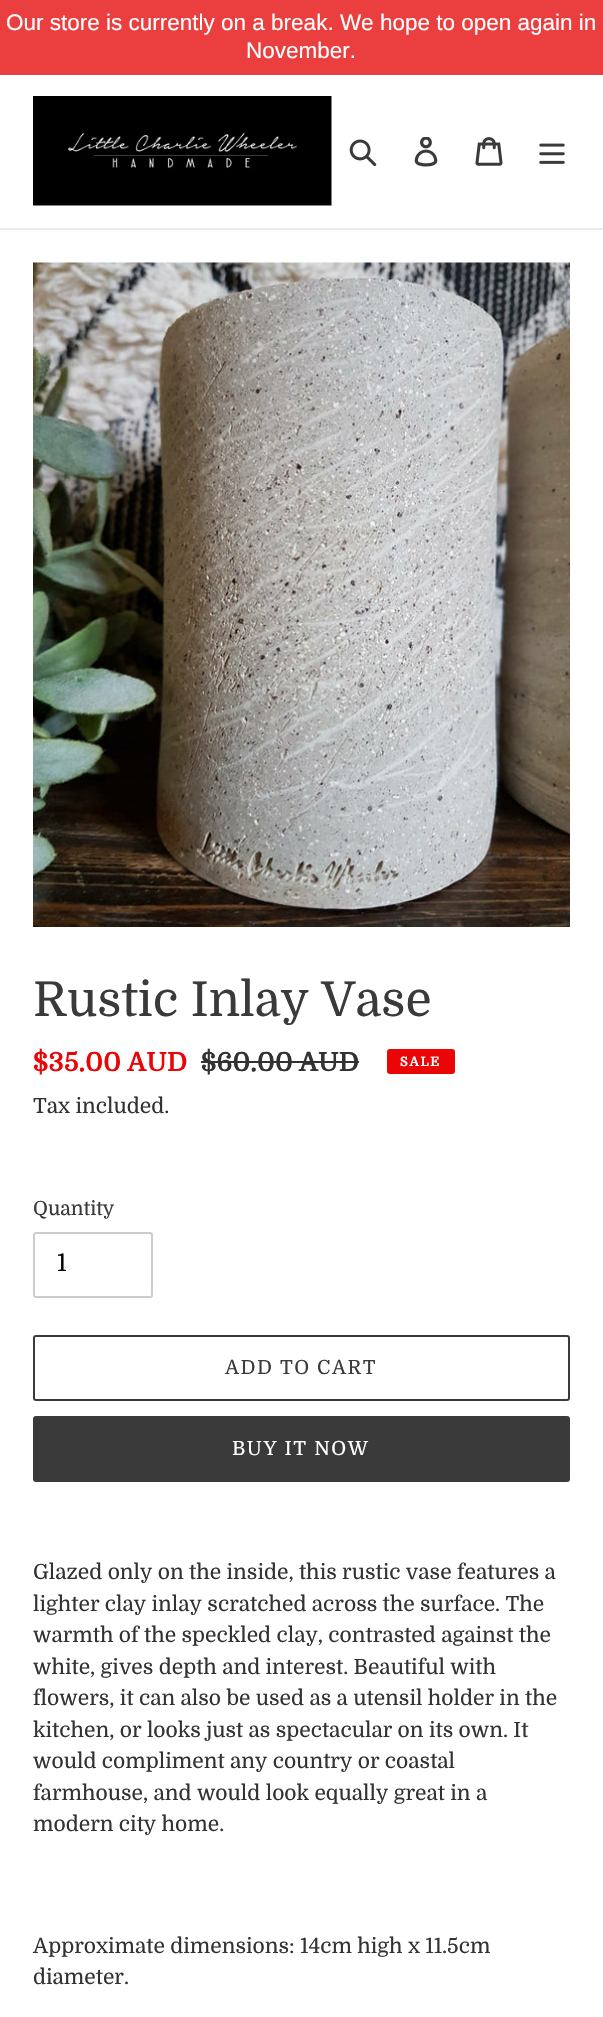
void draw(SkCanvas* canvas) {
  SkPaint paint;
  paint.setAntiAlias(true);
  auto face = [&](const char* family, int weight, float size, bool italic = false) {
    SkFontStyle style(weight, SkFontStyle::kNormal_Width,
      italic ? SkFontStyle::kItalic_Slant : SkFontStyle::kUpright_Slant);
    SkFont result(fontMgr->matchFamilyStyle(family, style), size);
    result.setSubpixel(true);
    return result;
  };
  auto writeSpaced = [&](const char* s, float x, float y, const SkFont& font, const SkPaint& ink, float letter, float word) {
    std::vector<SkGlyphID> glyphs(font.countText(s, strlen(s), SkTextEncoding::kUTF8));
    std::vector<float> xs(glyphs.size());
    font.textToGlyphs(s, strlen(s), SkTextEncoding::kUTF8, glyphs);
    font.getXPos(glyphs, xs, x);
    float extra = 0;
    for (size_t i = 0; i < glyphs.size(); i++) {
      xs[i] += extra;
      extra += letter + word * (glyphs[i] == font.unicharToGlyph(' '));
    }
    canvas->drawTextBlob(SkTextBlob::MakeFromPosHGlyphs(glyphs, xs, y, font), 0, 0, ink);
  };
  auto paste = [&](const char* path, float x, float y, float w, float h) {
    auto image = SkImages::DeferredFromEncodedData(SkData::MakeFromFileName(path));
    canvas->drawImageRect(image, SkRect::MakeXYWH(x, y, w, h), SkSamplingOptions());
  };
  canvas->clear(0xffffffff);
  paint.setColor(0xffeb3e3e);
  canvas->drawRect(SkRect::MakeXYWH(0, 0, 603, 75), paint);
  paint.setColor(0xffebebeb);
  canvas->drawRect(SkRect::MakeXYWH(0, 228, 603, 2), paint);
  paste("img/1.png", 33, 96, 299, 110);
  paste("img/2.png", 349, 139, 28, 28);
  paste("img/3.png", 414, 137, 24, 30);
  paste("img/4.png", 475, 137, 28, 29);
  paste("img/5.png", 539, 143, 26, 21);
  paste("img/6.png", 33, 262, 537, 665);
  paint.setColor(0xff333232);
  canvas->drawRect(SkRect::MakeXYWH(201, 1061, 158, 2), paint);
  paint.setColor(0xffea0606);
  canvas->drawRoundRect(SkRect::MakeXYWH(388, 1050, 66, 23), 2, 2, paint);
  paint.setStroke(true);
  paint.setStrokeWidth(2);
  canvas->drawRoundRect(SkRect::MakeXYWH(388, 1050, 66, 23), 2, 2, paint);
  paint.setColor(0xffcccccc);
  canvas->drawRoundRect(SkRect::MakeXYWH(34, 1233, 118, 64), 2, 2, paint);
  paint.setColor(0xff3a3a3a);
  canvas->drawRoundRect(SkRect::MakeXYWH(34, 1336, 535, 64), 2, 2, paint);
  paint.setStroke(false);
  canvas->drawRoundRect(SkRect::MakeXYWH(33, 1416, 537, 66), 3, 3, paint);
  auto f0 = face("Liberation Sans", 400, 22.5f);
  paint.setColor(0xffffffff);
  canvas->drawString("Our store is currently on a break. We hope to open again in", 6, 30, f0, paint);
  canvas->drawString("November.", 246, 58, f0, paint);
  auto f1 = face("Domine", 400, 48);
  paint.setColor(0xff3a3a3a);
  canvas->drawString("Rustic Inlay Vase", 33, 1016, f1, paint);
  auto f2 = face("Domine", 700, 26.25f);
  paint.setColor(0xffea0606);
  canvas->drawString("$35.00 AUD", 33, 1071, f2, paint);
  paint.setColor(0xff333232);
  canvas->drawString("$60.00 AUD", 201, 1071, f2, paint);
  auto f3 = face("Domine", 700, 13);
  paint.setColor(0xffffffff);
  writeSpaced("SALE", 400, 1066, f3, paint, 1.5f, 0);
  auto f4 = face("Domine", 400, 21);
  paint.setColor(0xff333232);
  canvas->drawString("Tax included.", 33, 1113, f4, paint);
  auto f5 = face("Domine", 400, 19.5f);
  paint.setColor(0xff3a3a3a);
  canvas->drawString("Quantity", 33, 1215, f5, paint);
  auto f6 = face("Domine", 400, 24);
  paint.setColor(0xff000000);
  canvas->drawString("1", 57, 1271, f6, paint);
  paint.setColor(0xff3a3a3a);
  writeSpaced("ADD TO CART", 225, 1374, f5, paint, 1.5f, 0);
  paint.setColor(0xffffffff);
  writeSpaced("BUY IT NOW", 232, 1455, f5, paint, 1.5f, 0);
  paint.setColor(0xff333232);
  {
    const struct { const char* s; float x, y; } items[] = {
      {"Glazed only on the inside, this rustic vase features a", 33, 1579},
      {"lighter clay inlay scratched across the surface. The", 33, 1611},
      {"warmth of the speckled clay, contrasted against the", 33, 1642},
      {"white, gives depth and interest. Beautiful with", 33, 1674},
      {"flowers, it can also be used as a utensil holder in the", 33, 1705},
      {"kitchen, or looks just as spectacular on its own. It", 33, 1737},
      {"would compliment any country or coastal", 33, 1768},
      {"farmhouse, and would look equally great in a", 33, 1800},
      {"modern city home.", 33, 1831},
      {"Approximate dimensions: 14cm high x 11.5cm", 33, 1953},
      {"diameter.", 33, 1984},
    };
    for (auto [s, x, y] : items) {
      canvas->drawString(s, x, y, f4, paint);
    }
  }
}
